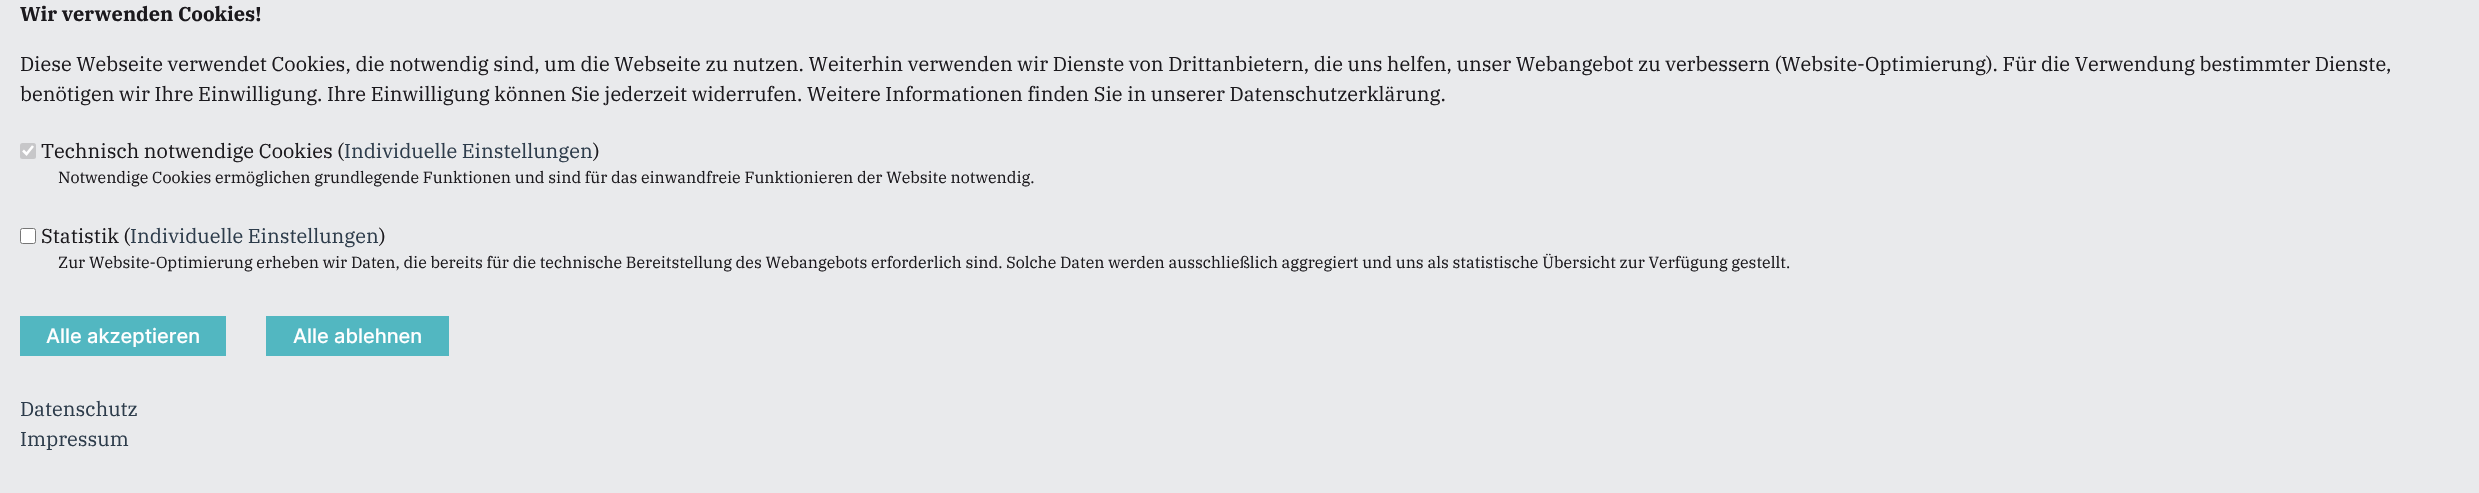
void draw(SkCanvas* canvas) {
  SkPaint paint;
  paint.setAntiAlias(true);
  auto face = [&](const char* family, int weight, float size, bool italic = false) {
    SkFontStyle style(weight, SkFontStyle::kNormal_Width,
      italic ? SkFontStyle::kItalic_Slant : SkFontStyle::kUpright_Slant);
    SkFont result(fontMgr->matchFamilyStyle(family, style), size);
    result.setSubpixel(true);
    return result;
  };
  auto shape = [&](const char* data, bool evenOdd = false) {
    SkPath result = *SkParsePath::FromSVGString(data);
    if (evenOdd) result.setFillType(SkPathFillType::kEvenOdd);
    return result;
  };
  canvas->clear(0xffe9eaec);
  paint.setColor(0xffc7c7c9);
  canvas->drawRoundRect(SkRect::MakeXYWH(20, 143, 16, 16), 2.5f, 2.5f, paint);
  paint.setStroke(true);
  paint.setStrokeWidth(2.6f);
  paint.setColor(0xffffffff);
  canvas->drawPath(shape("M23 150.5L26.5 154L33 146"), paint);
  paint.setStroke(false);
  canvas->drawRoundRect(SkRect::MakeXYWH(20.5f, 228.5f, 15, 15), 2, 2, paint);
  paint.setStroke(true);
  paint.setStrokeWidth(1);
  paint.setColor(0xff767676);
  canvas->drawRoundRect(SkRect::MakeXYWH(20.5f, 228.5f, 15, 15), 2, 2, paint);
  paint.setStroke(false);
  paint.setColor(0xff52b7c1);
  canvas->drawRect(SkRect::MakeXYWH(20, 316, 206, 40), paint);
  canvas->drawRect(SkRect::MakeXYWH(266, 316, 183, 40), paint);
  auto f0 = face("IBM Plex Serif", 700, 20);
  paint.setColor(0xff1b191d);
  canvas->drawString("Wir verwenden Cookies!", 20, 21, f0, paint);
  auto f1 = face("IBM Plex Serif", 400, 20);
  {
    const struct { const char* s; float x, y; } items[] = {
      {"Diese Webseite verwendet Cookies, die notwendig sind, um die Webseite zu nutzen. Weiterhin verwenden wir Dienste von Drittanbietern, die uns helfen, unser Webangebot zu verbessern (Website-Optimierung). Für die Verwendung bestimmter Dienste,", 20, 71},
      {"benötigen wir Ihre Einwilligung. Ihre Einwilligung können Sie jederzeit widerrufen. Weitere Informationen finden Sie in unserer Datenschutzerklärung.", 20, 101},
      {"Technisch notwendige Cookies (", 41, 158},
    };
    for (auto [s, x, y] : items) {
      canvas->drawString(s, x, y, f1, paint);
    }
  }
  paint.setColor(0xff2d3c4b);
  canvas->drawString("Individuelle Einstellungen", 344, 158, f1, paint);
  paint.setColor(0xff1b191d);
  canvas->drawString(")", 593, 158, f1, paint);
  auto f2 = face("IBM Plex Serif", 400, 16);
  canvas->drawString("Notwendige Cookies ermöglichen grundlegende Funktionen und sind für das einwandfreie Funktionieren der Website notwendig.", 58, 183, f2, paint);
  canvas->drawString("Statistik (", 41, 243, f1, paint);
  paint.setColor(0xff2d3c4b);
  canvas->drawString("Individuelle Einstellungen", 130, 243, f1, paint);
  paint.setColor(0xff1b191d);
  canvas->drawString(")", 379, 243, f1, paint);
  canvas->drawString("Zur Website-Optimierung erheben wir Daten, die bereits für die technische Bereitstellung des Webangebots erforderlich sind. Solche Daten werden ausschließlich aggregiert und uns als statistische Übersicht zur Verfügung gestellt.", 58, 268, f2, paint);
  auto f3 = face("Inter", 500, 20);
  paint.setColor(0xffffffff);
  canvas->drawString("Alle akzeptieren", 46, 343, f3, paint);
  canvas->drawString("Alle ablehnen", 293, 343, f3, paint);
  paint.setColor(0xff2d3c4b);
  canvas->drawString("Datenschutz", 20, 416, f1, paint);
  canvas->drawString("Impressum", 20, 446, f1, paint);
}
